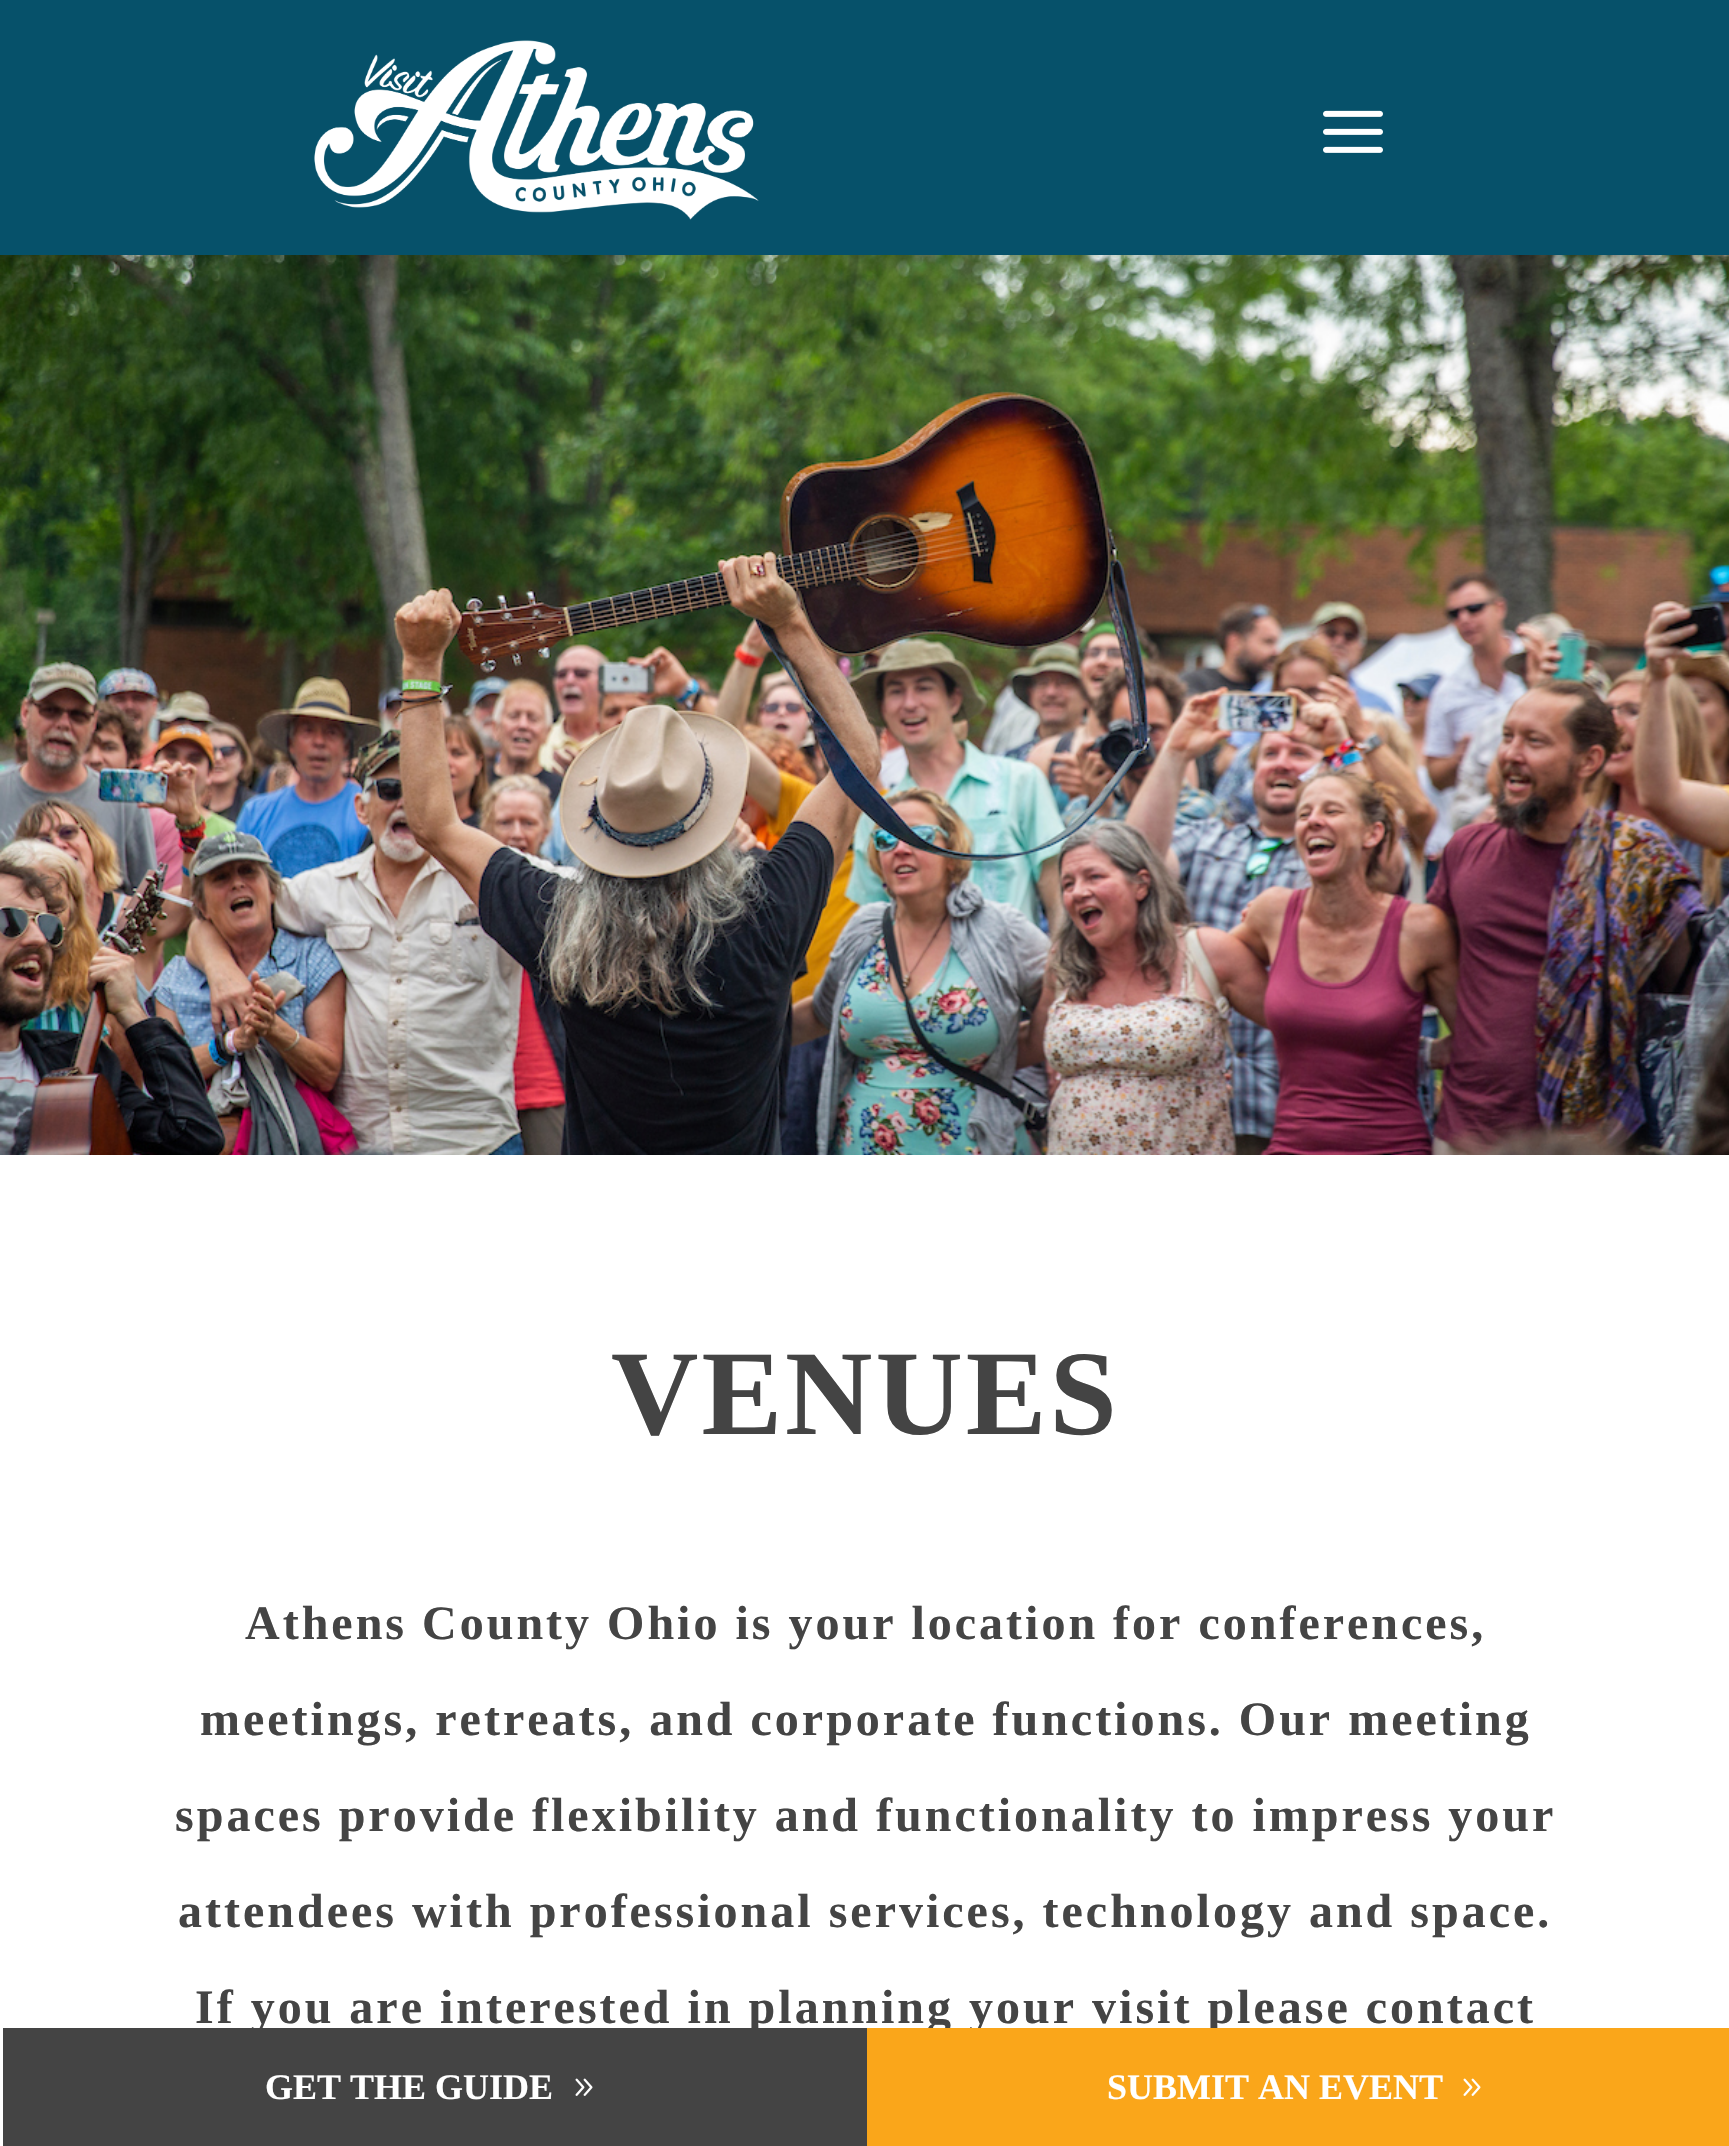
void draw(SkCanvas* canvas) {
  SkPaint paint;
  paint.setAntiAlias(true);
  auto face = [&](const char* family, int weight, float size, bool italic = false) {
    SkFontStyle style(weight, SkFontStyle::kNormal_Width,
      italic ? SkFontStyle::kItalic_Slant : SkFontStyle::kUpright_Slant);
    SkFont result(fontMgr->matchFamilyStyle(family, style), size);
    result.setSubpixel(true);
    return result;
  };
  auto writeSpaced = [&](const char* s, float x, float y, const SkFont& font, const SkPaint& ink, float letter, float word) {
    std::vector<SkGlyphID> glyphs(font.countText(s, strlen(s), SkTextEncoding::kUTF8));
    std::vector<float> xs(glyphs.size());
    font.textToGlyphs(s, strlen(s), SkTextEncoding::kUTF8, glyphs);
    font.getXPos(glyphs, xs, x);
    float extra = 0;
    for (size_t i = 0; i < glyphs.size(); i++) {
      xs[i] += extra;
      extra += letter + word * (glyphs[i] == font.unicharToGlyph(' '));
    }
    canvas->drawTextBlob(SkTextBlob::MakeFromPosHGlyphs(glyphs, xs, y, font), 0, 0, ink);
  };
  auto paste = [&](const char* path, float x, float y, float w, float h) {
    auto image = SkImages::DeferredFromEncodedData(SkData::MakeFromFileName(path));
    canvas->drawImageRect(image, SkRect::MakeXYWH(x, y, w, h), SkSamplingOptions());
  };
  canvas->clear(0xffffffff);
  paint.setColor(0xff06516a);
  canvas->drawRect(SkRect::MakeXYWH(0, 0, 1729, 255), paint);
  paste("img/1.png", 314, 40, 445, 180);
  paste("img/2.png", 1323, 110, 60, 43);
  paste("img/3.png", 0, 255, 1729, 900);
  paint.setColor(0xff444444);
  canvas->drawRect(SkRect::MakeXYWH(3, 2028, 864, 118), paint);
  paste("img/4.png", 575, 2078, 18, 18);
  auto f0 = face("Liberation Serif", 700, 121);
  writeSpaced("VENUES", 611, 1434, f0, paint, 3, 0);
  auto f1 = face("Liberation Serif", 700, 48);
  {
    const struct { const char* s; float x, y; } items[] = {
      {"Athens County Ohio is your location for conferences,", 245, 1639},
      {"meetings, retreats, and corporate functions. Our meeting", 200, 1735},
      {"spaces provide flexibility and functionality to impress your", 175, 1831},
      {"attendees with professional services, technology and space.", 178, 1927},
      {"If you are interested in planning your visit please contact", 195, 2023},
    };
    for (auto [s, x, y] : items) {
      writeSpaced(s, x, y, f1, paint, 3, 0);
    }
  }
  auto f2 = face("Liberation Serif", 700, 36);
  paint.setColor(0xffffffff);
  canvas->drawString("GET THE GUIDE", 265, 2099, f2, paint);
  paint.setColor(0xfffaa61a);
  canvas->drawRect(SkRect::MakeXYWH(867, 2028, 862, 118), paint);
  paint.setColor(0xffffffff);
  canvas->drawString("SUBMIT AN EVENT", 1107, 2099, f2, paint);
  paste("img/5.png", 1463, 2078, 18, 18);
}
